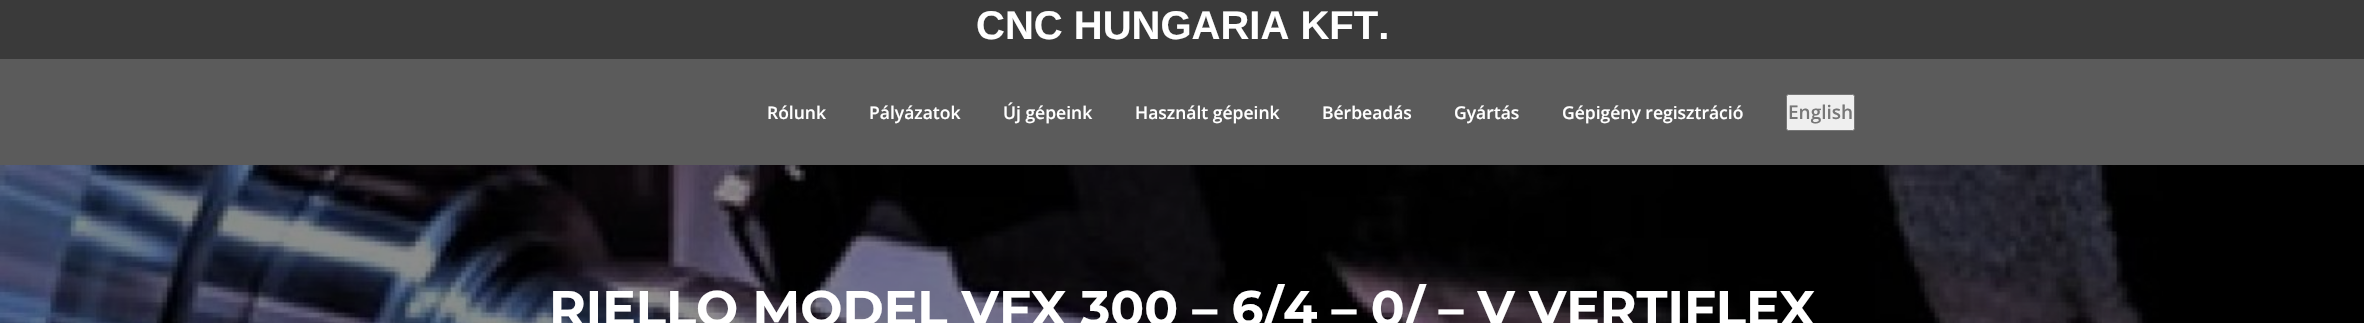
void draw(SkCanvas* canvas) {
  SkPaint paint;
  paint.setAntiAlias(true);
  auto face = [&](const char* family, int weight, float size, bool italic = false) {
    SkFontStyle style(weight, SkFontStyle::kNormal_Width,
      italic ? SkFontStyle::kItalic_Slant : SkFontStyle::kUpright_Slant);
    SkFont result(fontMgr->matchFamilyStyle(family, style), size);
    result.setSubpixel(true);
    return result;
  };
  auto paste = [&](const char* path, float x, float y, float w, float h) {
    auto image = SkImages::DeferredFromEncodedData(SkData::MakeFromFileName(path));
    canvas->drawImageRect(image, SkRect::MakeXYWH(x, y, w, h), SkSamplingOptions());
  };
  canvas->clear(0xffffffff);
  paint.setColor(0xff3a3a3a);
  canvas->drawRect(SkRect::MakeXYWH(0, 0, 2364, 59), paint);
  paint.setColor(0xff5b5b5b);
  canvas->drawRect(SkRect::MakeXYWH(0, 59, 2364, 106), paint);
  paint.setColor(0xffefefef);
  canvas->drawRoundRect(SkRect::MakeXYWH(1786.5f, 94.5f, 68, 36), 2, 2, paint);
  paint.setStroke(true);
  paint.setStrokeWidth(1);
  paint.setColor(0xff767676);
  canvas->drawRoundRect(SkRect::MakeXYWH(1786.5f, 94.5f, 68, 36), 2, 2, paint);
  paste("img/1.png", 0, 165, 2364, 158);
  auto f0 = face("Liberation Sans", 700, 40);
  paint.setStroke(false);
  paint.setColor(0xffffffff);
  canvas->drawString("CNC HUNGARIA KFT.", 976, 39, f0, paint);
  auto f1 = face("Open Sans", 600, 17.5f);
  {
    const struct { const char* s; float x, y; } items[] = {
      {"Rólunk", 767, 119},
      {"Pályázatok", 869, 119},
      {"Új gépeink", 1003, 119},
      {"Használt gépeink", 1135, 119},
      {"Bérbeadás", 1322, 119},
      {"Gyártás", 1454, 119},
      {"Gépigény regisztráció", 1562, 119},
    };
    for (auto [s, x, y] : items) {
      canvas->drawString(s, x, y, f1, paint);
    }
  }
  auto f2 = face("Open Sans", 600, 19);
  paint.setColor(0xff777777);
  canvas->drawString("English", 1788, 119, f2, paint);
  auto f3 = face("Montserrat", 700, 50);
  paint.setColor(0xffffffff);
  canvas->drawString("RIELLO MODEL VFX 300 – 6/4 – 0/ – V VERTIFLEX", 549, 326, f3, paint);
}
